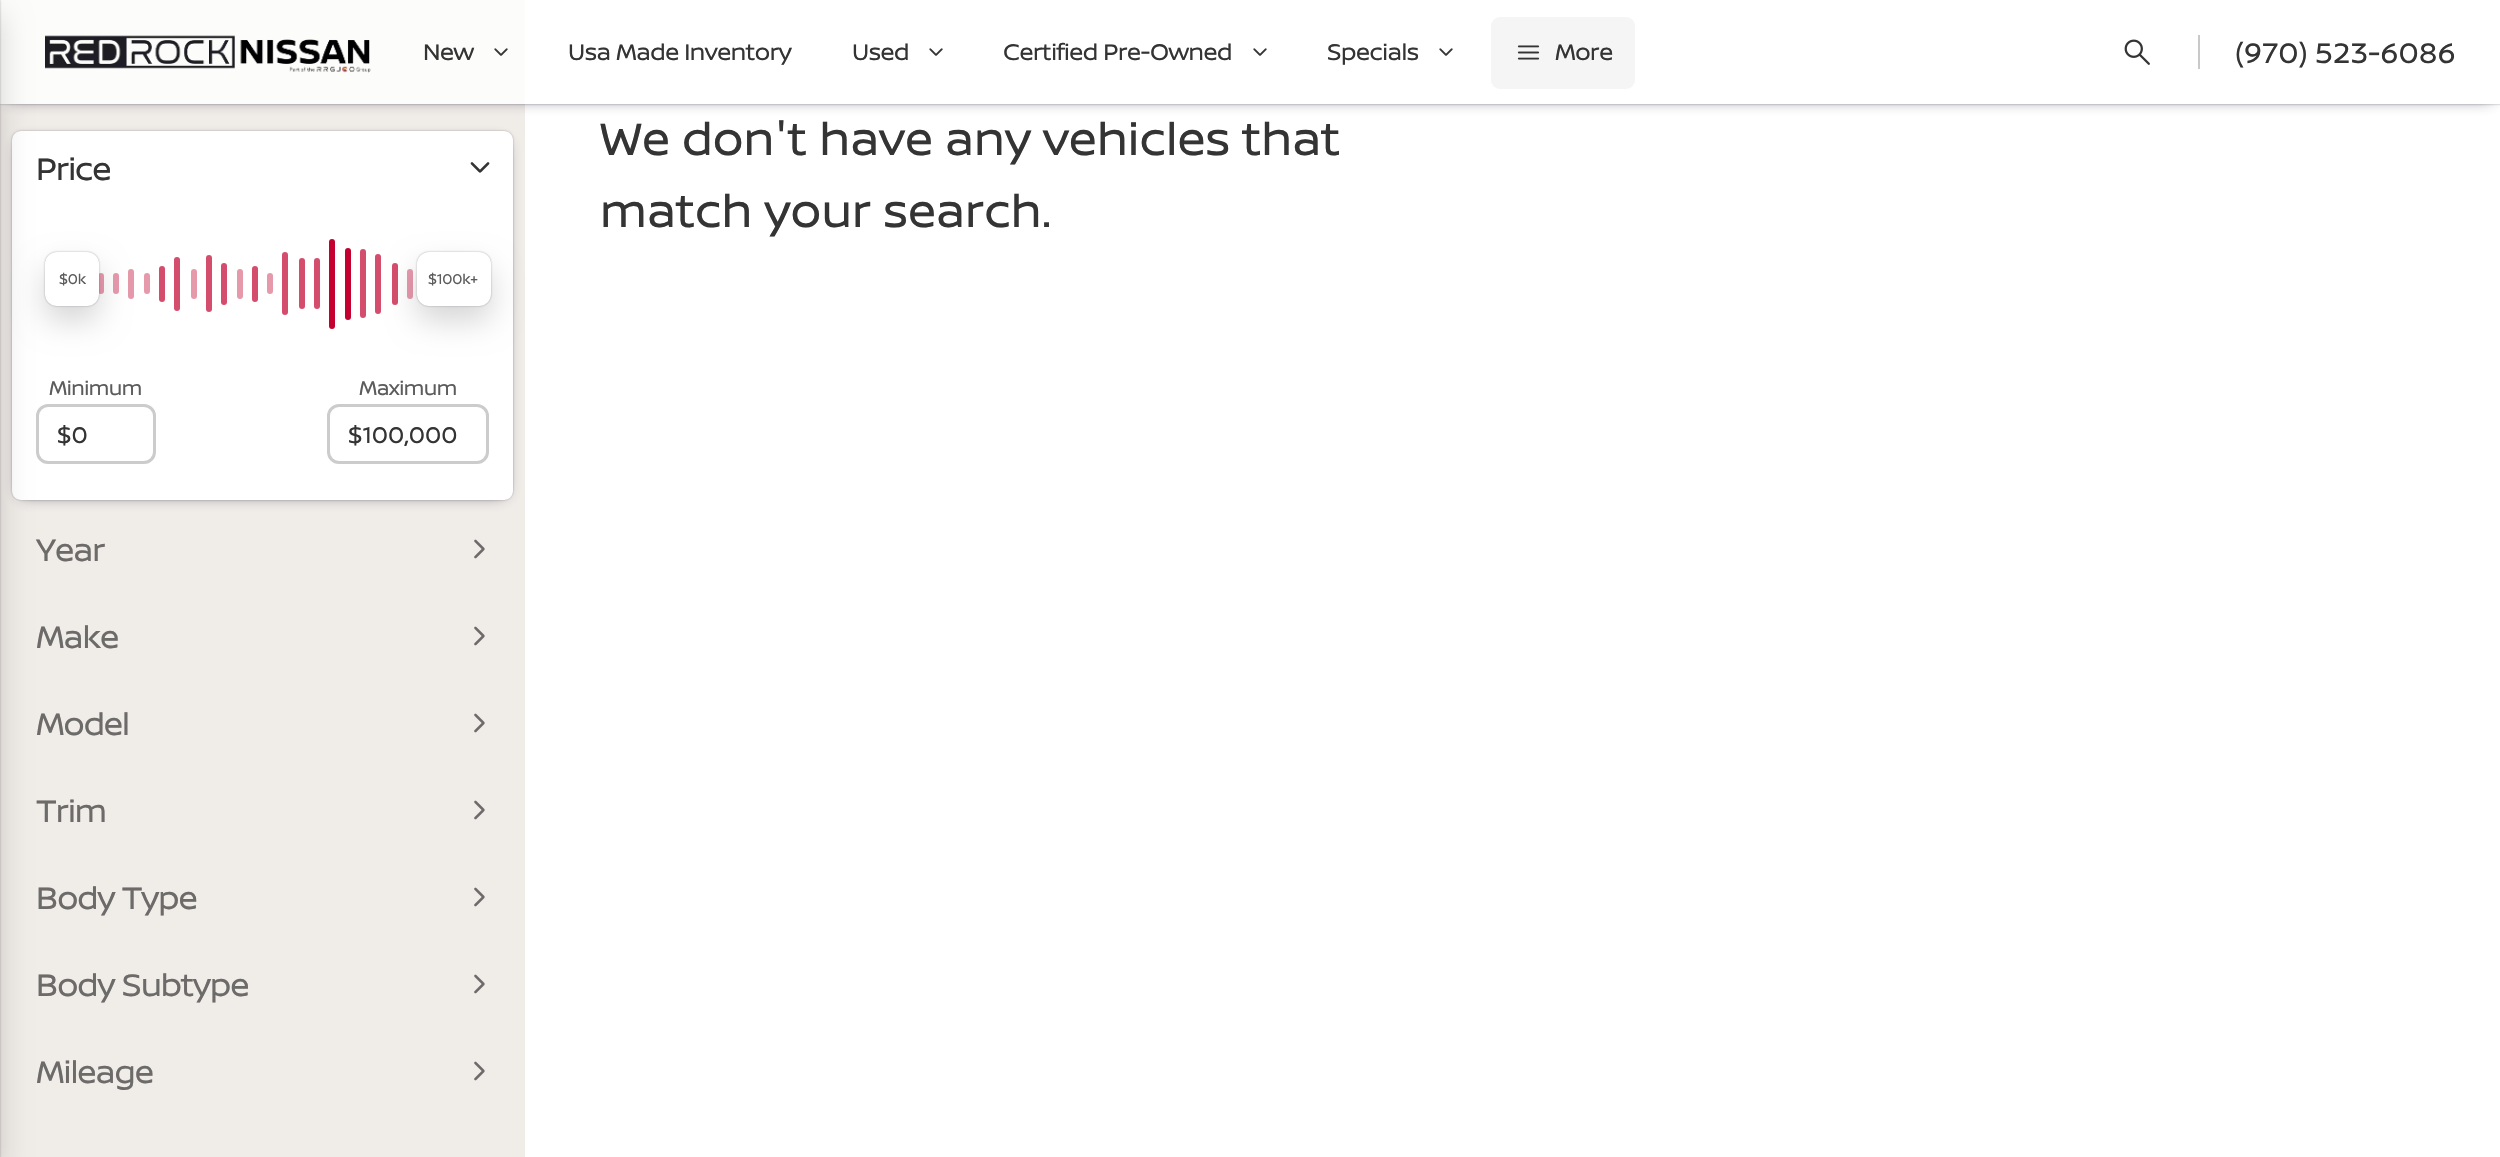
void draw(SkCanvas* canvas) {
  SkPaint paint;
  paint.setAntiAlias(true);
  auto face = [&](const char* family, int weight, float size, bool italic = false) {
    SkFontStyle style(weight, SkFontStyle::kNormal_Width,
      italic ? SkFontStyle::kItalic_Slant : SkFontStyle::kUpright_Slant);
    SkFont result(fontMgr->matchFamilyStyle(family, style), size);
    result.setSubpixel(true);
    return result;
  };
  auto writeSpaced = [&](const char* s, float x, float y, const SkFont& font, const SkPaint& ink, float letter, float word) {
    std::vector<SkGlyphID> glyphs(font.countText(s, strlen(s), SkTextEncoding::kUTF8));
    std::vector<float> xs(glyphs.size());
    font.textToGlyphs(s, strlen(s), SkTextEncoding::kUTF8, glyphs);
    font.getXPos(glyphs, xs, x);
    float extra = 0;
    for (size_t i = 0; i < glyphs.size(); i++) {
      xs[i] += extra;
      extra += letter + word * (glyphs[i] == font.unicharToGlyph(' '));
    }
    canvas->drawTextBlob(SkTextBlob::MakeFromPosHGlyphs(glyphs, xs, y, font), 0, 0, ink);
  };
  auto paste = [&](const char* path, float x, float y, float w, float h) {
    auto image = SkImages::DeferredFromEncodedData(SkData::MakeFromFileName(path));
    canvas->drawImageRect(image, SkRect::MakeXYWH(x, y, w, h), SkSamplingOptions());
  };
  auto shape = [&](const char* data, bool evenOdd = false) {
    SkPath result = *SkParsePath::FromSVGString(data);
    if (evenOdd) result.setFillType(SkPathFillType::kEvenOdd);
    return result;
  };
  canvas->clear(0xfff0ece8);
  paint.setColor(0xffffffff);
  canvas->drawRect(SkRect::MakeXYWH(525, 0, 1975, 1157), paint);
  canvas->save();
  canvas->clipPath(shape("M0 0H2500V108H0ZM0 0H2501V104H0Z", true), true);
  paint.setColor(0x66272138);
  paint.setMaskFilter(SkMaskFilter::MakeBlur(kNormal_SkBlurStyle, 1));
  canvas->drawRect(SkRect::MakeXYWH(0, 0, 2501, 104), paint);
  paint.setMaskFilter(nullptr);
  canvas->restore();
  canvas->save();
  canvas->clipPath(shape("M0 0H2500V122H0ZM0 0H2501V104H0Z", true), true);
  paint.setColor(0xcc272138);
  paint.setMaskFilter(SkMaskFilter::MakeBlur(kNormal_SkBlurStyle, 7.5f));
  canvas->drawRect(SkRect::MakeXYWH(9, 12, 2483, 86), paint);
  paint.setMaskFilter(nullptr);
  canvas->restore();
  paint.setColor(0xccffffff);
  canvas->drawRect(SkRect::MakeXYWH(0, 0, 2500, 104), paint);
  paste("img/1.png", 45, 35, 326, 38);
  paste("img/2.png", 494, 48, 14, 8);
  paste("img/3.png", 929, 48, 14, 8);
  paste("img/3.png", 1253, 48, 14, 8);
  paste("img/3.png", 1439, 48, 14, 8);
  paint.setColor(0xfff5f5f5);
  canvas->drawRoundRect(SkRect::MakeXYWH(1491, 17, 144, 72), 9, 9, paint);
  paste("img/4.png", 1517, 45, 23, 15);
  paste("img/5.png", 2124, 39, 26, 26);
  paint.setColor(0xffc9c9c9);
  canvas->drawRect(SkRect::MakeXYWH(2198, 35, 2, 34), paint);
  paint.setColor(0x66272138);
  paint.setMaskFilter(SkMaskFilter::MakeBlur(kNormal_SkBlurStyle, 1));
  canvas->drawRect(SkRect::MakeXYWH(-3, 0, 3, 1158), paint);
  paint.setMaskFilter(nullptr);
  paint.setMaskFilter(SkMaskFilter::MakeBlur(kNormal_SkBlurStyle, 1));
  canvas->drawRoundRect(SkRect::MakeXYWH(12, 131, 501, 369), 9, 9, paint);
  paint.setMaskFilter(nullptr);
  paint.setColor(0xcc272138);
  paint.setMaskFilter(SkMaskFilter::MakeBlur(kNormal_SkBlurStyle, 7.5f));
  canvas->drawRect(SkRect::MakeXYWH(21, 143, 483, 351), paint);
  paint.setMaskFilter(nullptr);
  paint.setColor(0xffffffff);
  canvas->drawPath(shape("M21 131H504C509 131 513 135 513 140V206H12V140C12 135 16 131 21 131Z"), paint);
  canvas->drawPath(shape("M12 206H513V491C513 496 509 500 504 500H21C16 500 12 496 12 491Z"), paint);
  paint.setColor(0xffe799ac);
  canvas->drawRoundRect(SkRect::MakeXYWH(98, 273, 6, 21), 3, 3, paint);
  paint.setColor(0x66272138);
  paint.setMaskFilter(SkMaskFilter::MakeBlur(kNormal_SkBlurStyle, 1));
  canvas->drawRoundRect(SkRect::MakeXYWH(45, 252, 54, 54), 12, 12, paint);
  paint.setMaskFilter(nullptr);
  paint.setColor(0xffe799ac);
  canvas->drawRoundRect(SkRect::MakeXYWH(113, 273, 6, 21), 3, 3, paint);
  canvas->drawRoundRect(SkRect::MakeXYWH(128, 269, 6, 30), 3, 3, paint);
  canvas->drawRoundRect(SkRect::MakeXYWH(144, 273, 6, 21), 3, 3, paint);
  paint.setColor(0x29000000);
  paint.setMaskFilter(SkMaskFilter::MakeBlur(kNormal_SkBlurStyle, 15));
  canvas->drawRoundRect(SkRect::MakeXYWH(45, 267, 54, 54), 12, 12, paint);
  paint.setMaskFilter(nullptr);
  paint.setColor(0xffffffff);
  canvas->drawRoundRect(SkRect::MakeXYWH(45, 252, 54, 54), 12, 12, paint);
  paint.setStroke(true);
  paint.setStrokeWidth(3);
  paint.setColor(0xffcccccc);
  canvas->drawRoundRect(SkRect::MakeXYWH(37.5f, 405.5f, 117, 57), 10.5f, 10.5f, paint);
  paint.setStroke(false);
  paint.setColor(0x29000000);
  paint.setMaskFilter(SkMaskFilter::MakeBlur(kNormal_SkBlurStyle, 15));
  canvas->drawRect(SkRect::MakeXYWH(-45, 15, 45, 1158), paint);
  paint.setMaskFilter(nullptr);
  paste("img/6.png", 470, 162, 20, 11);
  paint.setColor(0xffd54d6d);
  canvas->drawRoundRect(SkRect::MakeXYWH(159, 266, 6, 36), 3, 3, paint);
  canvas->drawRoundRect(SkRect::MakeXYWH(174, 257, 6, 54), 3, 3, paint);
  paint.setColor(0xffe799ac);
  canvas->drawRoundRect(SkRect::MakeXYWH(191, 269, 6, 30), 3, 3, paint);
  paint.setColor(0xffd54d6d);
  canvas->drawRoundRect(SkRect::MakeXYWH(206, 255, 6, 57), 3, 3, paint);
  canvas->drawRoundRect(SkRect::MakeXYWH(221, 263, 6, 42), 3, 3, paint);
  paint.setColor(0xffe799ac);
  canvas->drawRoundRect(SkRect::MakeXYWH(237, 269, 6, 30), 3, 3, paint);
  paint.setColor(0xffd54d6d);
  canvas->drawRoundRect(SkRect::MakeXYWH(252, 266, 6, 36), 3, 3, paint);
  paint.setColor(0xffe799ac);
  canvas->drawRoundRect(SkRect::MakeXYWH(267, 273, 6, 21), 3, 3, paint);
  paint.setColor(0xffd54d6d);
  canvas->drawRoundRect(SkRect::MakeXYWH(282, 252, 6, 63), 3, 3, paint);
  canvas->drawRoundRect(SkRect::MakeXYWH(299, 258, 6, 51), 3, 3, paint);
  canvas->drawRoundRect(SkRect::MakeXYWH(314, 258, 6, 51), 3, 3, paint);
  paint.setColor(0xffc3002f);
  canvas->drawRoundRect(SkRect::MakeXYWH(329, 239, 6, 90), 3, 3, paint);
  canvas->drawRoundRect(SkRect::MakeXYWH(345, 248, 6, 72), 3, 3, paint);
  paint.setColor(0xffd54d6d);
  canvas->drawRoundRect(SkRect::MakeXYWH(360, 249, 6, 69), 3, 3, paint);
  canvas->drawRoundRect(SkRect::MakeXYWH(375, 254, 6, 60), 3, 3, paint);
  canvas->drawRoundRect(SkRect::MakeXYWH(392, 263, 6, 42), 3, 3, paint);
  paint.setColor(0xffe799ac);
  canvas->drawRoundRect(SkRect::MakeXYWH(407, 269, 6, 30), 3, 3, paint);
  paint.setColor(0x66272138);
  paint.setMaskFilter(SkMaskFilter::MakeBlur(kNormal_SkBlurStyle, 1));
  canvas->drawRoundRect(SkRect::MakeXYWH(417, 252, 74, 54), 12, 12, paint);
  paint.setMaskFilter(nullptr);
  paint.setColor(0x29000000);
  paint.setMaskFilter(SkMaskFilter::MakeBlur(kNormal_SkBlurStyle, 15));
  canvas->drawRoundRect(SkRect::MakeXYWH(417, 267, 74, 54), 12, 12, paint);
  paint.setMaskFilter(nullptr);
  paint.setColor(0xffffffff);
  canvas->drawRoundRect(SkRect::MakeXYWH(417, 252, 74, 54), 12, 12, paint);
  paint.setStroke(true);
  paint.setColor(0xffcccccc);
  canvas->drawRoundRect(SkRect::MakeXYWH(328.5f, 405.5f, 159, 57), 10.5f, 10.5f, paint);
  paste("img/7.png", 474, 539, 11, 20);
  paste("img/7.png", 474, 626, 11, 20);
  paste("img/7.png", 474, 713, 11, 20);
  paste("img/7.png", 474, 800, 11, 20);
  paste("img/7.png", 474, 887, 11, 20);
  paste("img/7.png", 474, 974, 11, 20);
  paste("img/7.png", 474, 1061, 11, 20);
  auto f0 = face("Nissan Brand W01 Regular", 400, 24);
  paint.setStroke(false);
  paint.setColor(0xff343434);
  {
    const struct { const char* s; float x, y; } items[] = {
      {"New", 423, 60},
      {"Usa Made Inventory", 568, 60},
      {"Used", 852, 60},
      {"Certified Pre-Owned", 1003, 60},
      {"Specials", 1327, 60},
      {"More", 1555, 60},
    };
    for (auto [s, x, y] : items) {
      writeSpaced(s, x, y, f0, paint, -0.5f, 0);
    }
  }
  auto f1 = face("Nissan Brand W01 Regular", 400, 30);
  canvas->drawString("(970) 523-6086", 2235, 63, f1, paint);
  auto f2 = face("Nissan Brand W01 Regular", 400, 33);
  writeSpaced("Price", 36, 180, f2, paint, -1, 0);
  auto f3 = face("Nissan Brand W01 Regular", 400, 15);
  paint.setColor(0xff5c5c5c);
  writeSpaced("$0k", 59, 284, f3, paint, -0.25f, 0);
  writeSpaced("$100k+", 428, 284, f3, paint, -0.25f, 0);
  auto f4 = face("Nissan Brand W01 Regular", 400, 21);
  writeSpaced("Minimum", 49, 395, f4, paint, -0.5f, 0);
  paint.setColor(0xff343434);
  canvas->drawString("$0", 57, 443, f0, paint);
  paint.setColor(0xff5c5c5c);
  writeSpaced("Maximum", 359, 395, f4, paint, -0.5f, 0);
  paint.setColor(0xff343434);
  canvas->drawString("$100,000", 348, 443, f0, paint);
  paint.setColor(0xff6c6b6a);
  {
    const struct { const char* s; float x, y; } items[] = {
      {"Year", 36, 561},
      {"Make", 36, 648},
      {"Model", 36, 735},
      {"Trim", 36, 822},
      {"Body Type", 36, 909},
      {"Body Subtype", 36, 996},
      {"Mileage", 36, 1083},
    };
    for (auto [s, x, y] : items) {
      writeSpaced(s, x, y, f2, paint, -1, 0);
    }
  }
  auto f5 = face("Nissan Brand W01 Regular", 400, 48);
  paint.setColor(0xff343434);
  canvas->drawString("We don't have any vehicles that", 600, 155, f5, paint);
  canvas->drawString("match your search.", 600, 227, f5, paint);
}
